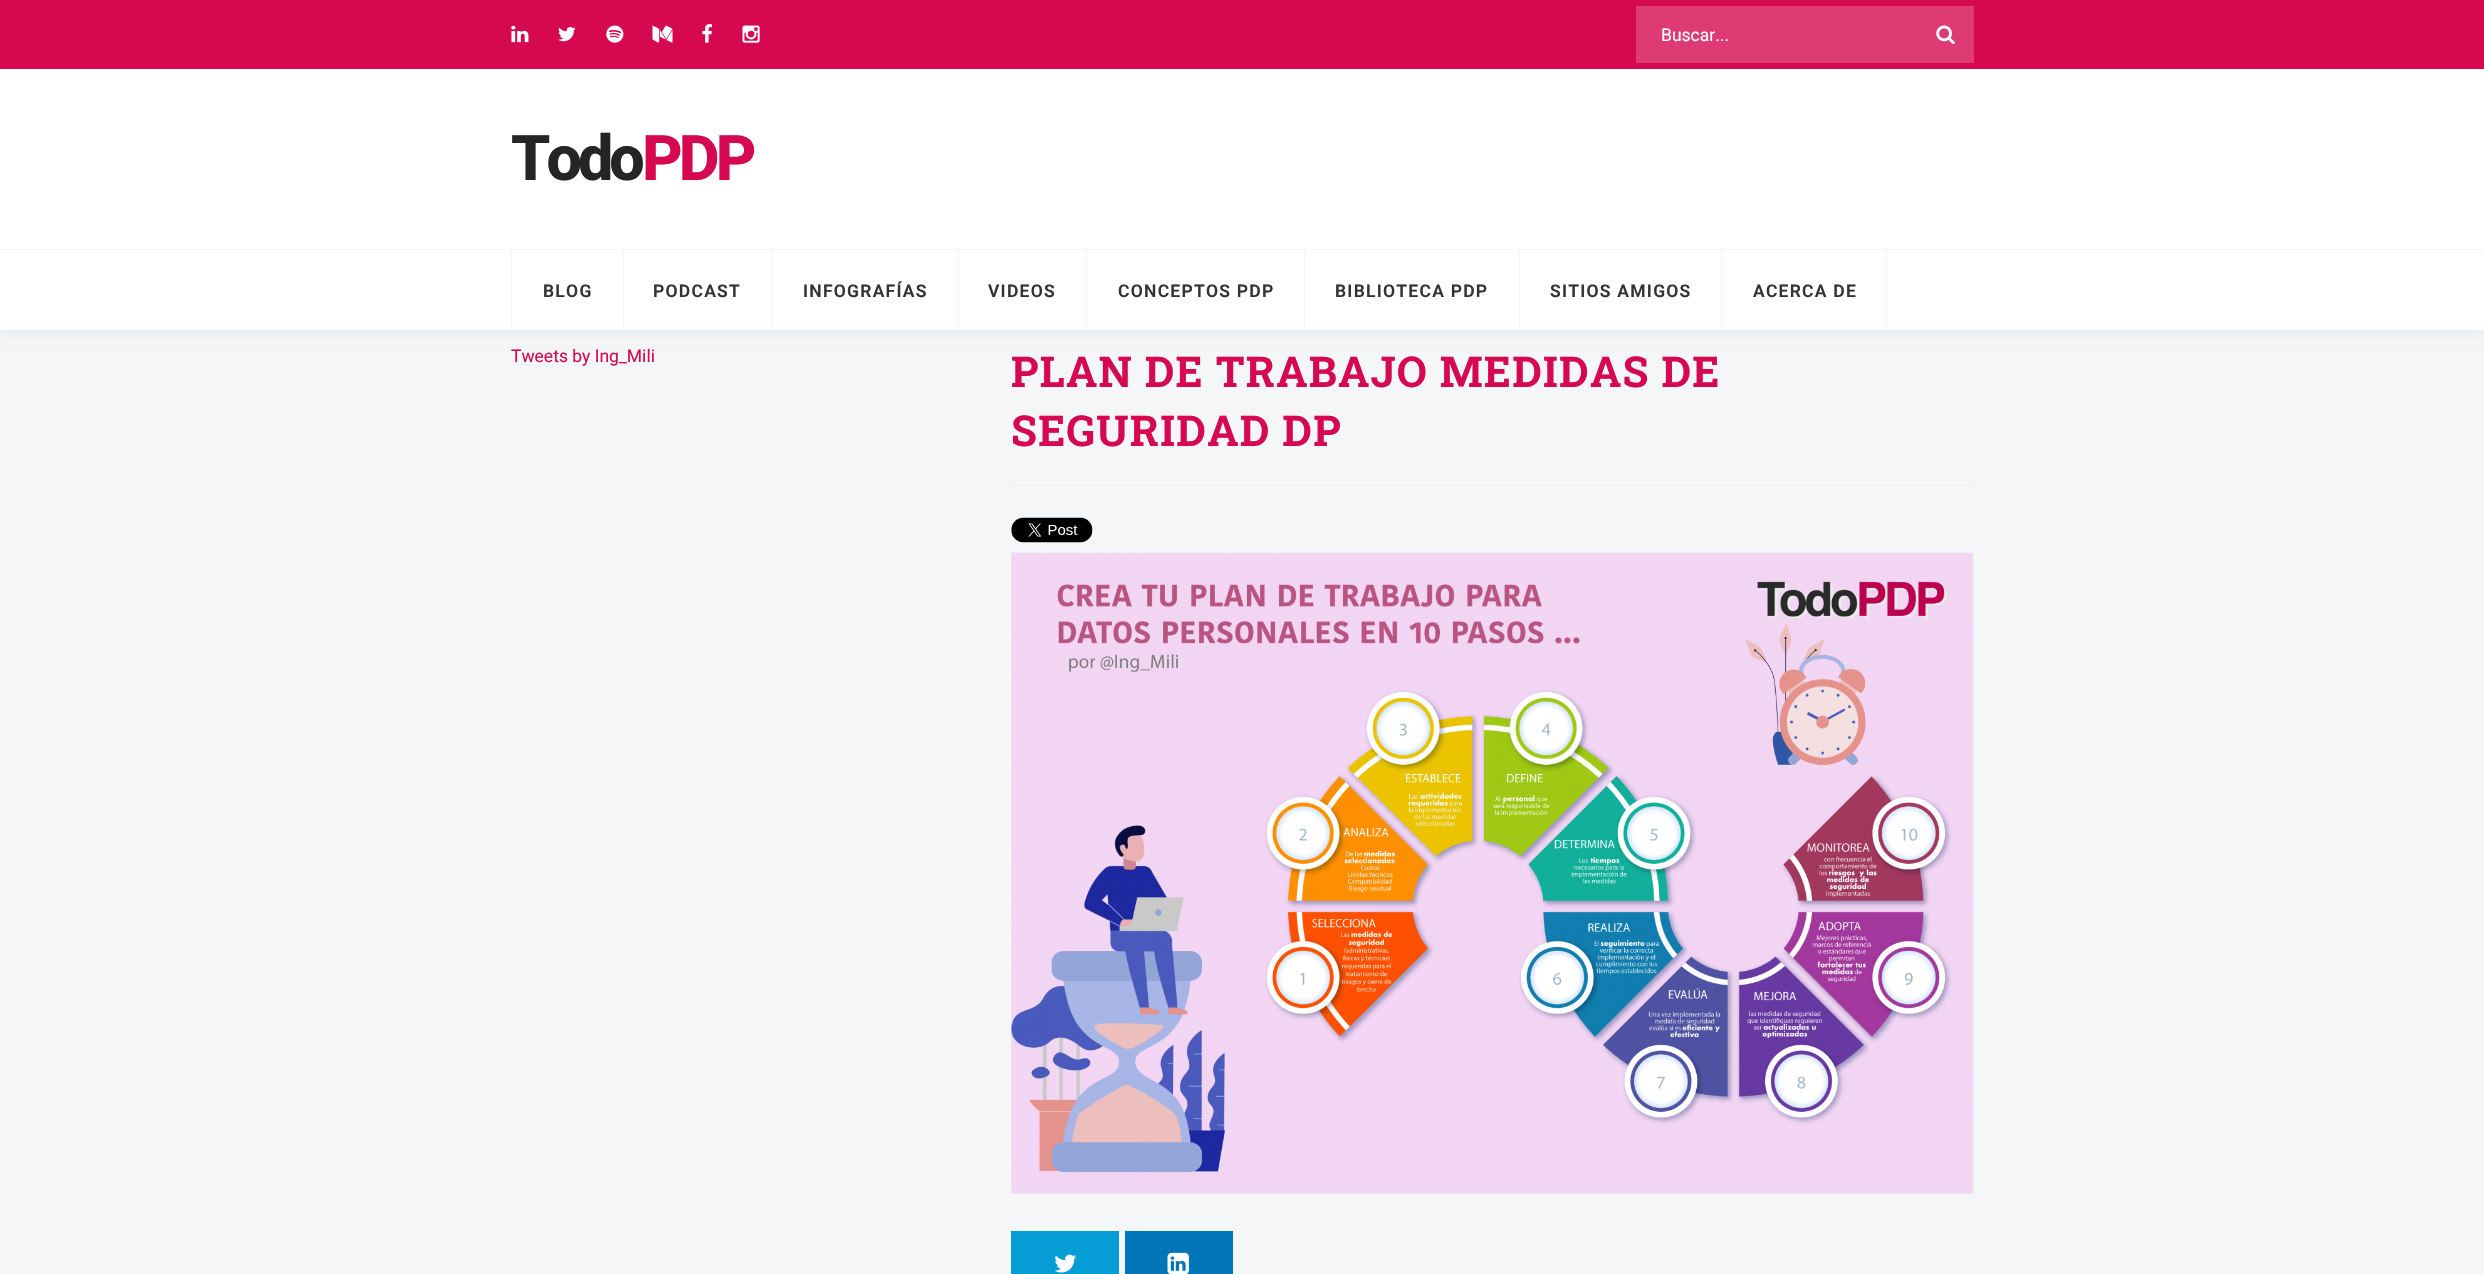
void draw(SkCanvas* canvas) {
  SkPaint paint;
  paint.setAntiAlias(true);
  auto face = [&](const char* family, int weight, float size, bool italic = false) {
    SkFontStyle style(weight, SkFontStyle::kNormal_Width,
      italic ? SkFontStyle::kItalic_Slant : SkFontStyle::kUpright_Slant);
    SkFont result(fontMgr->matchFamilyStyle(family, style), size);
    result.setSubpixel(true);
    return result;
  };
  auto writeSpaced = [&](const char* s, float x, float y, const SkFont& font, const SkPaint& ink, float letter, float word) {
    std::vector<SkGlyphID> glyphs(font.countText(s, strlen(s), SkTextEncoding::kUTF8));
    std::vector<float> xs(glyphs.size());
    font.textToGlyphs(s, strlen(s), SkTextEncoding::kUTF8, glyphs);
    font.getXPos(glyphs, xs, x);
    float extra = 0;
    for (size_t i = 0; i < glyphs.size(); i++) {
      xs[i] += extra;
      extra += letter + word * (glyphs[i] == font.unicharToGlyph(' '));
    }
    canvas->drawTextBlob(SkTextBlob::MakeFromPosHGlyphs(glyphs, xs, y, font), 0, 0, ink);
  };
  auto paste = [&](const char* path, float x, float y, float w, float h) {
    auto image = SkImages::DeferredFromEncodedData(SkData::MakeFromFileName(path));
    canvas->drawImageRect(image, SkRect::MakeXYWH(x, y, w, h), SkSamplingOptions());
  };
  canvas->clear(0xfff4f6f8);
  paint.setColor(0x0d000000);
  paint.setMaskFilter(SkMaskFilter::MakeBlur(kNormal_SkBlurStyle, 6));
  canvas->drawRect(SkRect::MakeXYWH(0, 3, 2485, 330), paint);
  paint.setMaskFilter(nullptr);
  paint.setColor(0xffffffff);
  canvas->drawRect(SkRect::MakeXYWH(0, 69, 2484, 261), paint);
  paint.setColor(0xffd60950);
  canvas->drawRect(SkRect::MakeXYWH(0, 0, 2484, 69), paint);
  paste("img/1.png", 511, 25, 18, 18);
  paste("img/2.png", 558, 27, 18, 15);
  paste("img/3.png", 606, 25, 18, 18);
  paste("img/4.png", 652, 25, 21, 18);
  paste("img/5.png", 702, 24, 10, 19);
  paste("img/6.png", 742, 25, 18, 18);
  paint.setColor(0xffde3a73);
  canvas->drawRect(SkRect::MakeXYWH(1636, 6, 338, 57), paint);
  paste("img/7.png", 1936, 25, 19, 20);
  {
    const struct { float x, y, w, h; SkColor color; } items[] = {
      {0, 249, 2484, 1, 0xfff5f4f4},
      {511, 250, 1, 80, 0xfff5f4f4},
      {623, 250, 1, 80, 0xfff5f4f4},
      {771, 250, 1, 80, 0xfff5f4f4},
      {958, 250, 1, 80, 0xfff5f4f4},
      {1086, 250, 1, 80, 0xfff5f4f4},
      {1304, 250, 1, 80, 0xfff5f4f4},
      {1519, 250, 1, 80, 0xfff5f4f4},
      {1886, 250, 1, 80, 0xfff5f4f4},
      {1721, 250, 1, 80, 0xfff5f4f4},
      {1011, 485, 963, 1, 0xffededed},
    };
    for (auto [x, y, w, h, color] : items) {
      paint.setColor(color);
      canvas->drawRect(SkRect::MakeXYWH(x, y, w, h), paint);
    }
  }
  paste("img/8.png", 1011, 517, 82, 26);
  paste("img/9.png", 1011, 552, 963, 642);
  paint.setColor(0xff069cd5);
  canvas->drawRect(SkRect::MakeXYWH(1011, 1231, 108, 43), paint);
  paste("img/10.png", 1054, 1254, 23, 19);
  paint.setColor(0xff0076b8);
  canvas->drawRect(SkRect::MakeXYWH(1125, 1231, 108, 43), paint);
  paste("img/11.png", 1167, 1252, 22, 22);
  auto f0 = face("Roboto", 400, 17.5f);
  paint.setColor(0xffffffff);
  canvas->drawString("Buscar...", 1661, 41, f0, paint);
  auto f1 = face("Roboto", 800, 63);
  paint.setColor(0xff252525);
  writeSpaced("Todo", 511, 180, f1, paint, -4, 0);
  paint.setColor(0xffd60950);
  writeSpaced("PDP", 642, 180, f1, paint, -4, 0);
  auto f2 = face("Roboto", 600, 17.5f);
  paint.setColor(0xff333333);
  {
    const struct { const char* s; float x, y; } items[] = {
      {"BLOG", 543, 297},
      {"PODCAST", 653, 297},
      {"INFOGRAFÍAS", 803, 297},
      {"VIDEOS", 988, 297},
      {"CONCEPTOS PDP", 1118, 297},
      {"BIBLIOTECA PDP", 1335, 297},
      {"SITIOS AMIGOS", 1550, 297},
      {"ACERCA DE", 1753, 297},
    };
    for (auto [s, x, y] : items) {
      writeSpaced(s, x, y, f2, paint, 1.25f, 0);
    }
  }
  paint.setColor(0xffd60950);
  canvas->drawString("Tweets by Ing_Mili", 511, 362, f0, paint);
  auto f3 = face("Roboto Slab", 700, 42.5f);
  writeSpaced("PLAN DE TRABAJO MEDIDAS DE", 1011, 387, f3, paint, 1.25f, 0);
  writeSpaced("SEGURIDAD DP", 1011, 446, f3, paint, 1.25f, 0);
}
